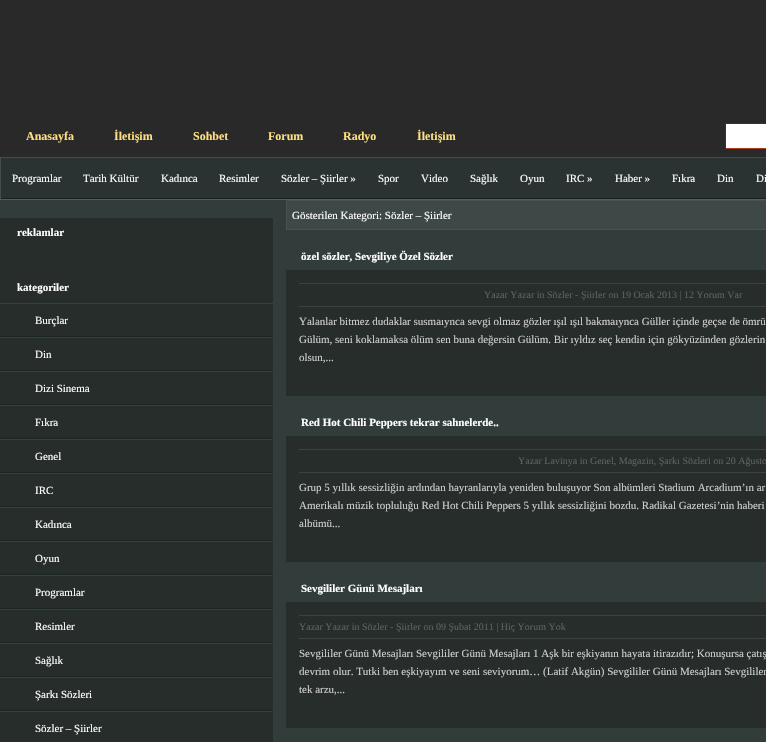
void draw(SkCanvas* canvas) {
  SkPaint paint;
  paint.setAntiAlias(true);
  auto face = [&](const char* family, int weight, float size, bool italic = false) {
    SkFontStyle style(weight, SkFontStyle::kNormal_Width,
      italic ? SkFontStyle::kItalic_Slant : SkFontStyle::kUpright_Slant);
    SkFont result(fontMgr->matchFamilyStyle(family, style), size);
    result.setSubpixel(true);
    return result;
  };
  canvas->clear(0xff292929);
  {
    const struct { float x, y, w, h; SkColor color; } items[] = {
      {726, 124, 40, 24, 0xffffffff},
      {725, 123, 41, 1, 0xff781b01},
      {725, 148, 41, 1, 0xffa83c1f},
      {725, 123, 1, 26, 0xff781b01},
      {1, 158, 765, 40, 0xff2a3331},
      {0, 157, 766, 1, 0xff424d4b},
      {0, 198, 766, 1, 0xff1a201e},
      {0, 157, 1, 42, 0xff424d4b},
      {0, 200, 766, 542, 0xff323c3a},
      {0, 199, 766, 1, 0xff515e5b},
      {0, 218, 273, 524, 0xff262d2b},
    };
    for (auto [x, y, w, h, color] : items) {
      paint.setColor(color);
      canvas->drawRect(SkRect::MakeXYWH(x, y, w, h), paint);
    }
  }
  paint.setColor(0xff3e4846);
  canvas->drawRect(SkRect::MakeXYWH(286.5f, 200.5f, 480, 29), paint);
  paint.setStroke(true);
  paint.setStrokeWidth(1);
  paint.setColor(0xff485351);
  canvas->drawRect(SkRect::MakeXYWH(286.5f, 200.5f, 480, 29), paint);
  paint.setStroke(false);
  {
    const struct { float x, y, w, h; SkColor color; } items[] = {
      {286, 270, 480, 126, 0xff262d2b},
      {299, 283, 467, 1, 0xff3b4341},
      {299, 306, 467, 1, 0xff3b4341},
      {286, 436, 480, 126, 0xff262d2b},
      {299, 449, 467, 1, 0xff3b4341},
      {299, 472, 467, 1, 0xff3b4341},
      {286, 602, 480, 126, 0xff262d2b},
      {299, 615, 467, 1, 0xff3b4341},
      {299, 638, 467, 1, 0xff3b4341},
      {0, 303, 273, 1, 0xff36423f},
      {0, 336, 273, 1, 0xff192522},
      {0, 337, 273, 1, 0xff36423f},
      {0, 370, 273, 1, 0xff192522},
      {0, 371, 273, 1, 0xff36423f},
      {0, 404, 273, 1, 0xff192522},
      {0, 405, 273, 1, 0xff36423f},
      {0, 438, 273, 1, 0xff192522},
      {0, 439, 273, 1, 0xff36423f},
      {0, 472, 273, 1, 0xff192522},
      {0, 473, 273, 1, 0xff36423f},
      {0, 506, 273, 1, 0xff192522},
      {0, 507, 273, 1, 0xff36423f},
      {0, 540, 273, 1, 0xff192522},
      {0, 541, 273, 1, 0xff36423f},
      {0, 574, 273, 1, 0xff192522},
      {0, 575, 273, 1, 0xff36423f},
      {0, 608, 273, 1, 0xff192522},
      {0, 609, 273, 1, 0xff36423f},
      {0, 642, 273, 1, 0xff192522},
      {0, 643, 273, 1, 0xff36423f},
      {0, 676, 273, 1, 0xff192522},
      {0, 677, 273, 1, 0xff36423f},
      {0, 710, 273, 1, 0xff192522},
      {0, 711, 273, 1, 0xff36423f},
    };
    for (auto [x, y, w, h, color] : items) {
      paint.setColor(color);
      canvas->drawRect(SkRect::MakeXYWH(x, y, w, h), paint);
    }
  }
  auto f0 = face("Liberation Serif", 700, 12);
  paint.setColor(0xffffdf81);
  {
    const struct { const char* s; float x, y; } items[] = {
      {"Anasayfa", 26, 140},
      {"İletişim", 114, 140},
      {"Sohbet", 193, 140},
      {"Forum", 268, 140},
      {"Radyo", 343, 140},
      {"İletişim", 417, 140},
    };
    for (auto [s, x, y] : items) {
      canvas->drawString(s, x, y, f0, paint);
    }
  }
  auto f1 = face("Liberation Serif", 400, 11);
  paint.setColor(0xffffffff);
  {
    const struct { const char* s; float x, y; } items[] = {
      {"Programlar", 12, 182},
      {"Tarih Kültür", 83, 182},
      {"Kadınca", 161, 182},
      {"Resimler", 219, 182},
      {"Sözler – Şiirler »", 281, 182},
      {"Spor", 378, 182},
      {"Video", 421, 182},
      {"Sağlık", 470, 182},
      {"Oyun", 520, 182},
      {"IRC »", 566, 182},
      {"Haber »", 615, 182},
      {"Fıkra", 672, 182},
      {"Din", 717, 182},
      {"Di", 756, 182},
    };
    for (auto [s, x, y] : items) {
      canvas->drawString(s, x, y, f1, paint);
    }
  }
  auto f2 = face("Liberation Serif", 700, 11);
  canvas->drawString("reklamlar", 17, 236, f2, paint);
  canvas->drawString("Gösterilen Kategori: Sözler – Şiirler", 292, 219, f1, paint);
  canvas->drawString("özel sözler, Sevgiliye Özel Sözler", 301, 260, f2, paint);
  auto f3 = face("Liberation Serif", 400, 10);
  paint.setColor(0xff5b6461);
  canvas->drawString("Yazar Yazar in Sözler - Şiirler on 19 Ocak 2013 | 12 Yorum Var", 484, 298, f3, paint);
  paint.setColor(0xffcfcfcf);
  {
    const struct { const char* s; float x, y; } items[] = {
      {"Yalanlar bitmez dudaklar susmaıynca sevgi olmaz gözler ışıl ışıl bakmaıynca Güller içinde geçse de ömrü", 299, 325},
      {"Gülüm, seni koklamaksa ölüm sen buna değersin Gülüm. Bir ıyldız seç kendin için gökyüzünden gözlerin", 299, 343},
      {"olsun,...", 299, 361},
    };
    for (auto [s, x, y] : items) {
      canvas->drawString(s, x, y, f1, paint);
    }
  }
  paint.setColor(0xffffffff);
  canvas->drawString("Red Hot Chili Peppers tekrar sahnelerde..", 301, 426, f2, paint);
  paint.setColor(0xff5b6461);
  canvas->drawString("Yazar Lavinya in Genel, Magazin, Şarkı Sözleri on 20 Ağusto", 518, 464, f3, paint);
  paint.setColor(0xffcfcfcf);
  {
    const struct { const char* s; float x, y; } items[] = {
      {"Grup 5 yıllık sessizliğin ardından hayranlarıyla yeniden buluşuyor Son albümleri Stadium Arcadium’ın ar", 299, 491},
      {"Amerikalı müzik topluluğu Red Hot Chili Peppers 5 yıllık sessizliğini bozdu. Radikal Gazetesi’nin haberi", 299, 509},
      {"albümü...", 299, 527},
    };
    for (auto [s, x, y] : items) {
      canvas->drawString(s, x, y, f1, paint);
    }
  }
  paint.setColor(0xffffffff);
  canvas->drawString("Sevgililer Günü Mesajları", 301, 592, f2, paint);
  paint.setColor(0xff5b6461);
  canvas->drawString("Yazar Yazar in Sözler - Şiirler on 09 Şubat 2011 | Hiç Yorum Yok", 299, 630, f3, paint);
  paint.setColor(0xffcfcfcf);
  {
    const struct { const char* s; float x, y; } items[] = {
      {"Sevgililer Günü Mesajları Sevgililer Günü Mesajları 1 Aşk bir eşkiyanın hayata itirazıdır; Konuşursa çatış", 299, 657},
      {"devrim olur. Tutki ben eşkiyayım ve seni seviyorum… (Latif Akgün) Sevgililer Günü Mesajları Sevgililer", 299, 675},
      {"tek arzu,...", 299, 693},
    };
    for (auto [s, x, y] : items) {
      canvas->drawString(s, x, y, f1, paint);
    }
  }
  paint.setColor(0xffffffff);
  canvas->drawString("kategoriler", 17, 291, f2, paint);
  {
    const struct { const char* s; float x, y; } items[] = {
      {"Burçlar", 35, 324},
      {"Din", 35, 358},
      {"Dizi Sinema", 35, 392},
      {"Fıkra", 35, 426},
      {"Genel", 35, 460},
      {"IRC", 35, 494},
      {"Kadınca", 35, 528},
      {"Oyun", 35, 562},
      {"Programlar", 35, 596},
      {"Resimler", 35, 630},
      {"Sağlık", 35, 664},
      {"Şarkı Sözleri", 35, 698},
      {"Sözler – Şiirler", 35, 732},
    };
    for (auto [s, x, y] : items) {
      canvas->drawString(s, x, y, f1, paint);
    }
  }
}
